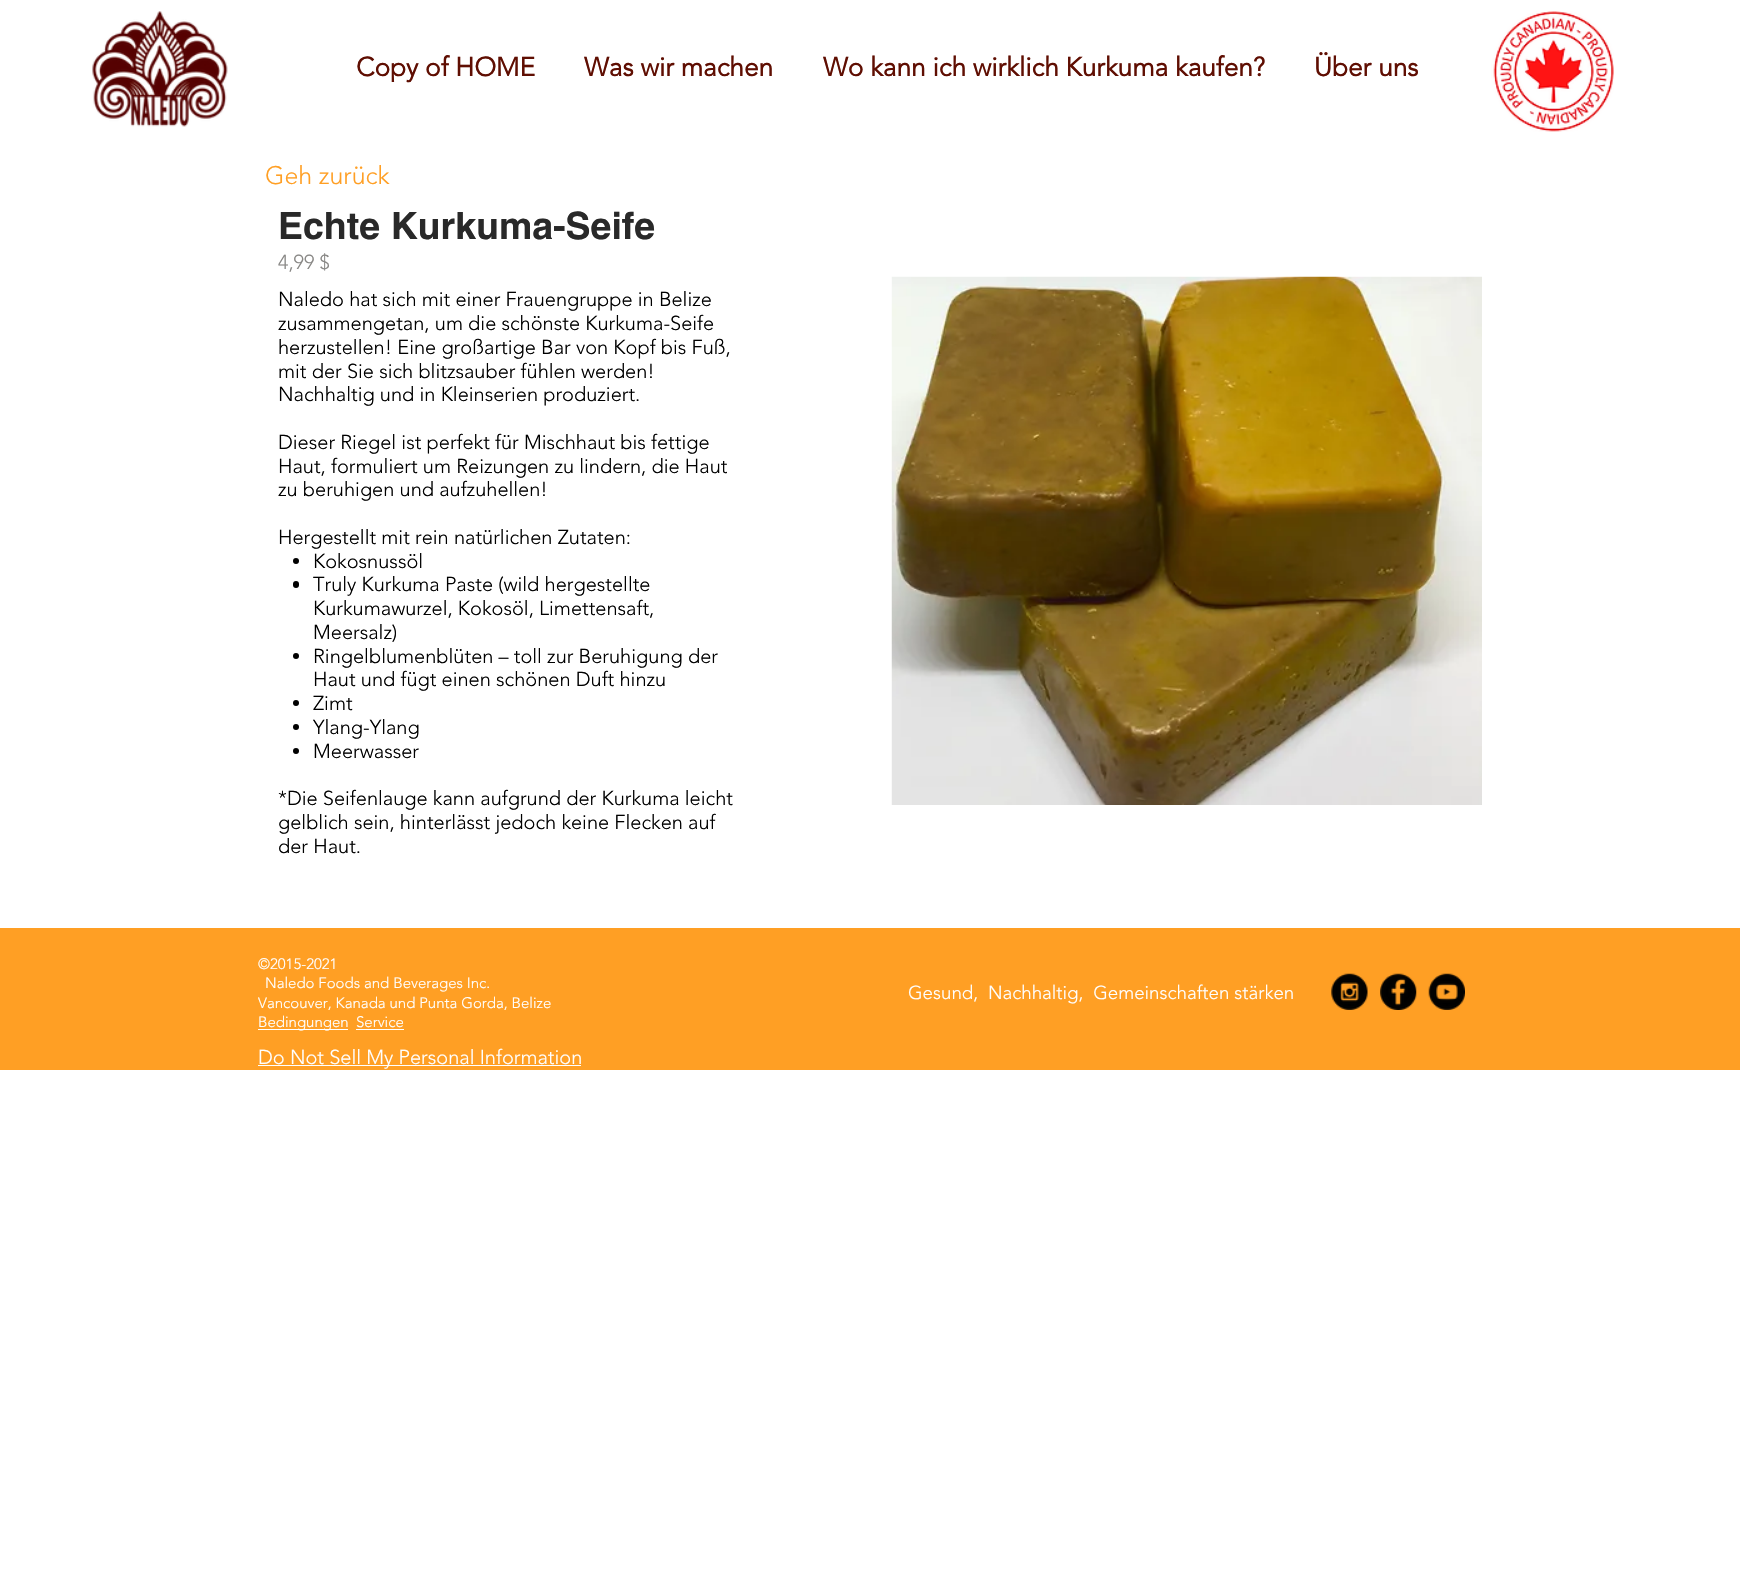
void draw(SkCanvas* canvas) {
  SkPaint paint;
  paint.setAntiAlias(true);
  auto face = [&](const char* family, int weight, float size, bool italic = false) {
    SkFontStyle style(weight, SkFontStyle::kNormal_Width,
      italic ? SkFontStyle::kItalic_Slant : SkFontStyle::kUpright_Slant);
    SkFont result(fontMgr->matchFamilyStyle(family, style), size);
    result.setSubpixel(true);
    return result;
  };
  auto paste = [&](const char* path, float x, float y, float w, float h) {
    auto image = SkImages::DeferredFromEncodedData(SkData::MakeFromFileName(path));
    canvas->drawImageRect(image, SkRect::MakeXYWH(x, y, w, h), SkSamplingOptions());
  };
  canvas->clear(0xffffffff);
  paste("img/1.png", 92, 11, 136, 116);
  paste("img/2.png", 1482, 11, 132, 121);
  paint.setColor(0xff000000);
  canvas->drawCircle(296, 561, 3, paint);
  canvas->drawRoundRect(SkRect::MakeXYWH(293, 581, 6, 7), 3, 3, paint);
  canvas->drawCircle(296, 656, 3, paint);
  canvas->drawCircle(296, 703, 3, paint);
  canvas->drawCircle(296, 727, 3, paint);
  canvas->drawCircle(296, 751, 3, paint);
  paste("img/3.png", 891, 276, 591, 529);
  {
    const struct { float x, y, w, h; SkColor color; } items[] = {
      {0, 928, 1740, 142, 0xffff9f24},
      {258, 1029, 90, 1, 0xffffffff},
      {356, 1029, 48, 1, 0xffffffff},
    };
    for (auto [x, y, w, h, color] : items) {
      paint.setColor(color);
      canvas->drawRect(SkRect::MakeXYWH(x, y, w, h), paint);
    }
  }
  paste("img/4.png", 1331, 973, 37, 37);
  paste("img/5.png", 1380, 973, 37, 37);
  paste("img/6.png", 1428, 973, 37, 37);
  canvas->drawRect(SkRect::MakeXYWH(258, 1065, 323, 1), paint);
  auto f0 = face("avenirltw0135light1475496", 700, 26.25f);
  paint.setColor(0xff5f0e02);
  {
    const struct { const char* s; float x, y; } items[] = {
      {"Copy of HOME", 356, 76},
      {"Was wir machen", 584, 76},
      {"Wo kann ich wirklich Kurkuma kaufen?", 823, 76},
      {"Über uns", 1314, 76},
    };
    for (auto [s, x, y] : items) {
      canvas->drawString(s, x, y, f0, paint);
    }
  }
  auto f1 = face("avenirltw0135light1475496", 300, 25);
  paint.setColor(0xffff9f24);
  canvas->drawString("Geh zurück", 265, 184, f1, paint);
  auto f2 = face("helvetica", 700, 37.5f);
  paint.setColor(0xff292929);
  canvas->drawString("Echte Kurkuma-Seife", 278, 239, f2, paint);
  auto f3 = face("avenirltw0135light1475496", 300, 20);
  paint.setColor(0xff888785);
  canvas->drawString("4,99 $", 278, 269, f3, paint);
  paint.setColor(0xff000000);
  {
    const struct { const char* s; float x, y; } items[] = {
      {"Naledo hat sich mit einer Frauengruppe in Belize", 278, 306},
      {"zusammengetan, um die schönste Kurkuma-Seife", 278, 330},
      {"herzustellen! Eine großartige Bar von Kopf bis Fuß,", 278, 354},
      {"mit der Sie sich blitzsauber fühlen werden!", 278, 378},
      {"Nachhaltig und in Kleinserien produziert.", 278, 401},
      {"Dieser Riegel ist perfekt für Mischhaut bis fettige", 278, 449},
      {"Haut, formuliert um Reizungen zu lindern, die Haut", 278, 473},
      {"zu beruhigen und aufzuhellen!", 278, 496},
      {"Hergestellt mit rein natürlichen Zutaten:", 278, 544},
      {"Kokosnussöl", 313, 568},
      {"Truly Kurkuma Paste (wild hergestellte", 313, 591},
      {"Kurkumawurzel, Kokosöl, Limettensaft,", 313, 615},
      {"Meersalz)", 313, 639},
      {"Ringelblumenblüten – toll zur Beruhigung der", 313, 663},
      {"Haut und fügt einen schönen Duft hinzu", 313, 686},
      {"Zimt", 313, 710},
      {"Ylang-Ylang", 313, 734},
      {"Meerwasser", 313, 758},
      {"*Die Seifenlauge kann aufgrund der Kurkuma leicht", 278, 805},
      {"gelblich sein, hinterlässt jedoch keine Flecken auf", 278, 829},
      {"der Haut.", 278, 853},
    };
    for (auto [s, x, y] : items) {
      canvas->drawString(s, x, y, f3, paint);
    }
  }
  auto f4 = face("avenirltw0135light1475496", 300, 15);
  paint.setColor(0xffffffff);
  {
    const struct { const char* s; float x, y; } items[] = {
      {"©2015-2021", 258, 969},
      {"Naledo Foods and Beverages Inc.", 265, 988},
      {"Vancouver, Kanada und Punta Gorda, Belize", 258, 1008},
      {"Bedingungen", 258, 1027},
      {"Service", 356, 1027},
    };
    for (auto [s, x, y] : items) {
      canvas->drawString(s, x, y, f4, paint);
    }
  }
  auto f5 = face("avenirltw0135light1475496", 300, 18.75f);
  canvas->drawString("Gesund,  Nachhaltig,  Gemeinschaften stärken", 908, 999, f5, paint);
  canvas->drawString("Do Not Sell My Personal Information", 258, 1064, f3, paint);
}
